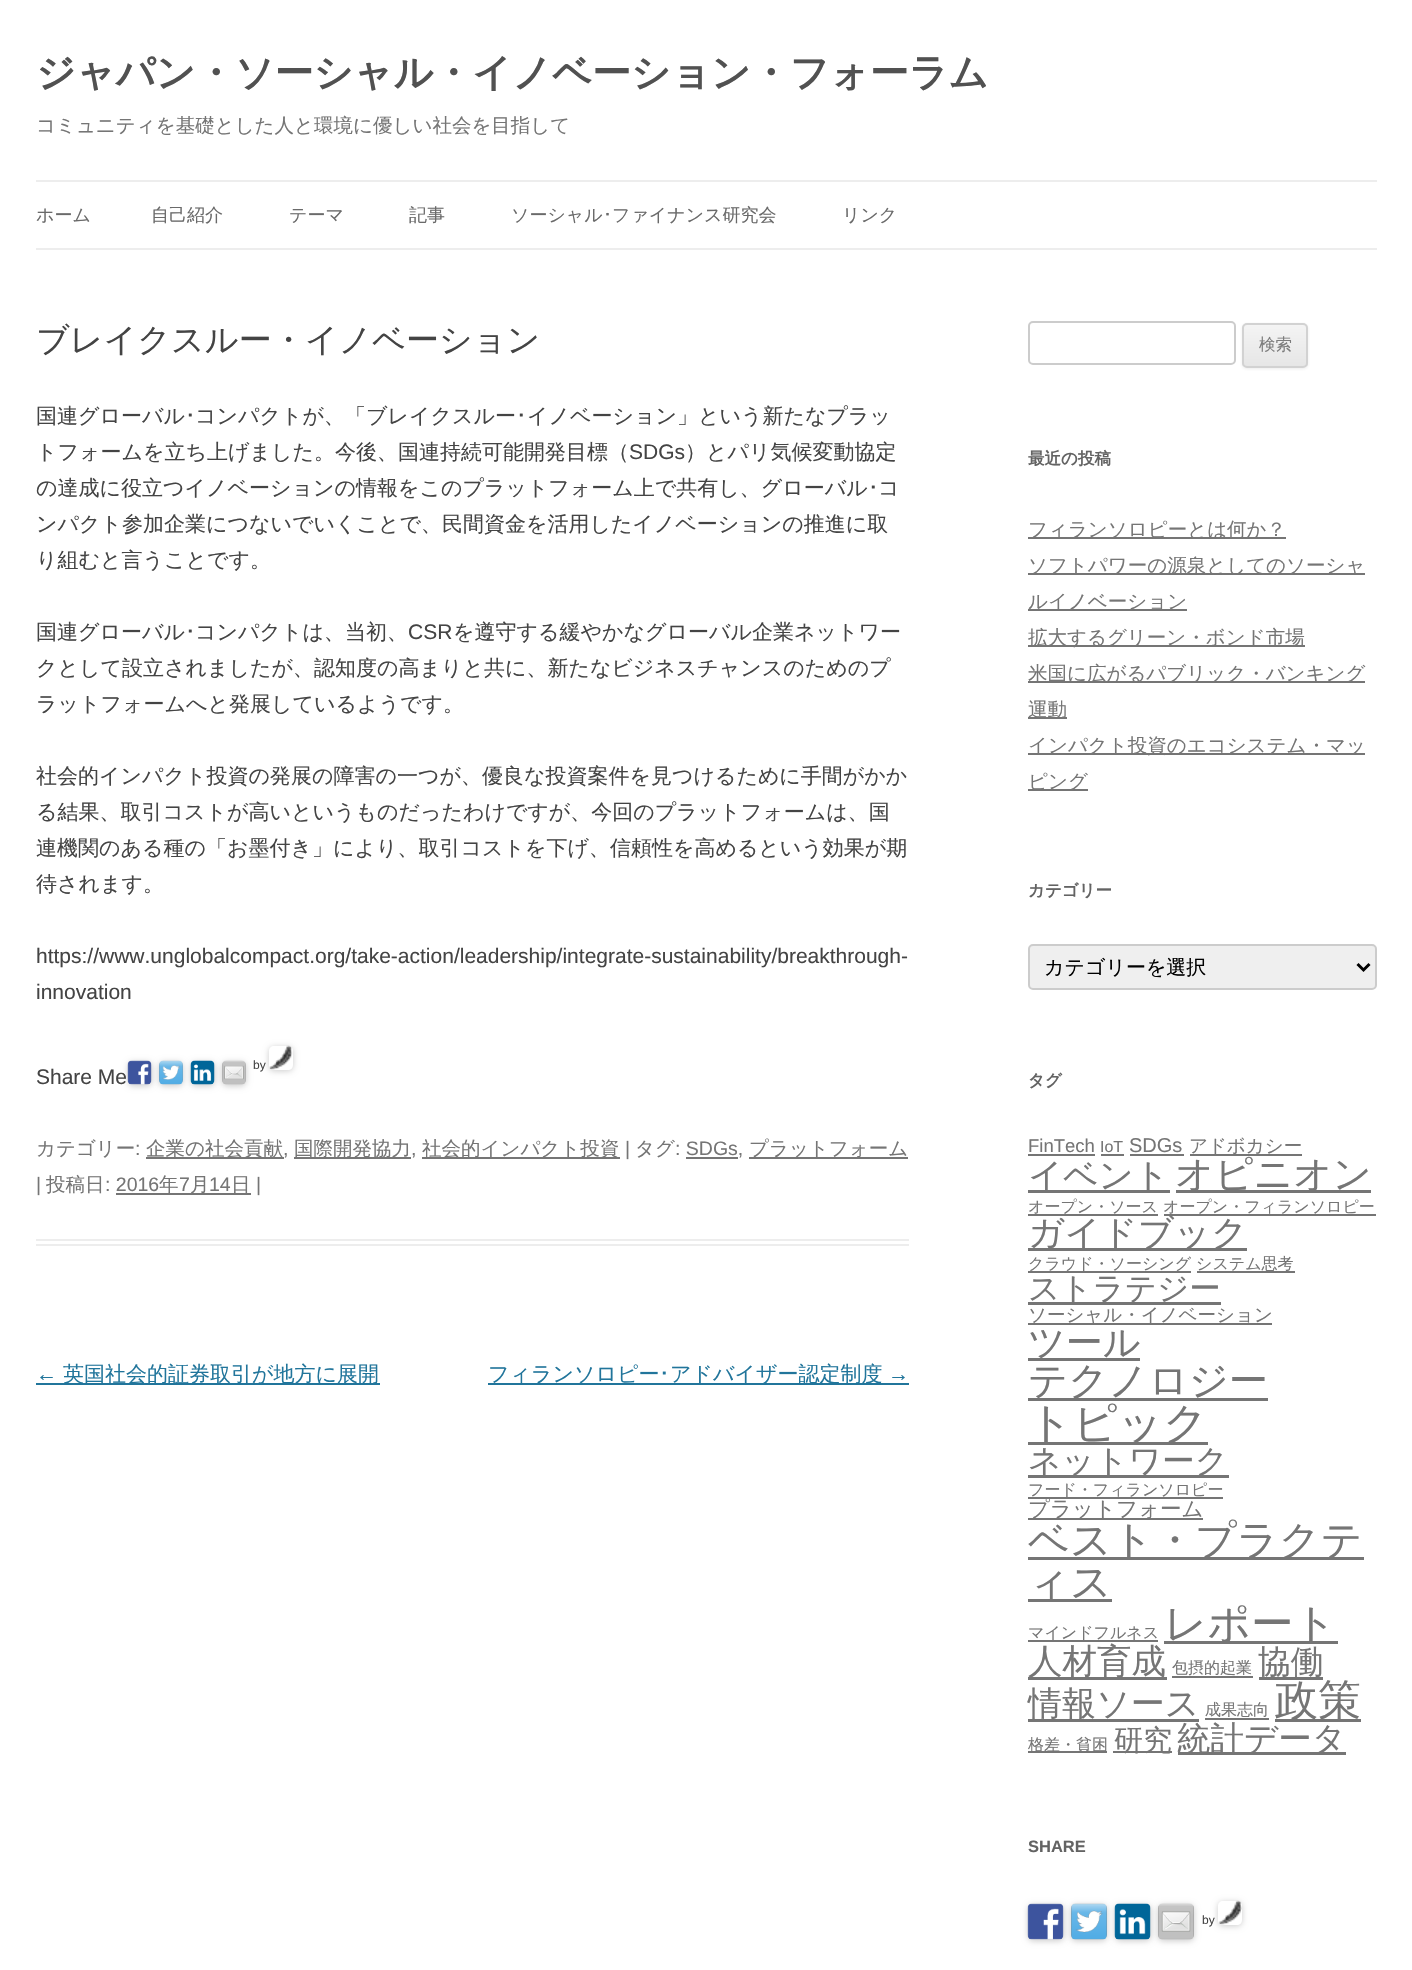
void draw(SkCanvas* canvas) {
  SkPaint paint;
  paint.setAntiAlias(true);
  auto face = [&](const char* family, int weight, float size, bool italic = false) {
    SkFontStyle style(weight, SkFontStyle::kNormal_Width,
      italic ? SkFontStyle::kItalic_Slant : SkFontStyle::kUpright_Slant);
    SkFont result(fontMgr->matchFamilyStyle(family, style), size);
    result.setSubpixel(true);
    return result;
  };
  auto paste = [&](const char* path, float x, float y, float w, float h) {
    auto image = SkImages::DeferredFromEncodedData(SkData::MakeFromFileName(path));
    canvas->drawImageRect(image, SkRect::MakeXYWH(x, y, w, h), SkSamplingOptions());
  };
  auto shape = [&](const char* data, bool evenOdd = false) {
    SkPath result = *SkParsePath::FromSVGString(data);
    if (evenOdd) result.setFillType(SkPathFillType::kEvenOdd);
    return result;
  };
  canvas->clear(0xffffffff);
  {
    const struct { float x, y, w, h; SkColor color; } items[] = {
      {36, 180, 1341, 2, 0xffededed},
      {36, 248, 1341, 2, 0xffededed},
      {36, 1239, 873, 2, 0xffededed},
      {36, 1244, 873, 2, 0xffededed},
    };
    for (auto [x, y, w, h, color] : items) {
      paint.setColor(color);
      canvas->drawRect(SkRect::MakeXYWH(x, y, w, h), paint);
    }
  }
  paint.setColor(0x33000000);
  paint.setMaskFilter(SkMaskFilter::MakeBlur(kNormal_SkBlurStyle, 3));
  canvas->drawRoundRect(SkRect::MakeXYWH(128, 1062, 24, 24), 5, 5, paint);
  paint.setMaskFilter(nullptr);
  paste("img/1.png", 127, 1060, 25, 25);
  paint.setMaskFilter(SkMaskFilter::MakeBlur(kNormal_SkBlurStyle, 3));
  canvas->drawRoundRect(SkRect::MakeXYWH(159, 1062, 24, 24), 5, 5, paint);
  paint.setMaskFilter(nullptr);
  paste("img/2.png", 159, 1060, 24, 25);
  paint.setMaskFilter(SkMaskFilter::MakeBlur(kNormal_SkBlurStyle, 3));
  canvas->drawRoundRect(SkRect::MakeXYWH(191, 1062, 24, 24), 5, 5, paint);
  paint.setMaskFilter(nullptr);
  paste("img/3.png", 190, 1060, 25, 25);
  paint.setMaskFilter(SkMaskFilter::MakeBlur(kNormal_SkBlurStyle, 3));
  canvas->drawRoundRect(SkRect::MakeXYWH(222, 1062, 24, 24), 5, 5, paint);
  paint.setMaskFilter(nullptr);
  paste("img/4.png", 222, 1060, 24, 25);
  canvas->save();
  canvas->clipPath(shape("M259 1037H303V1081H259ZM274 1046H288C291 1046 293 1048 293 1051V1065C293 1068 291 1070 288 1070H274C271 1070 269 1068 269 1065V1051C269 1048 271 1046 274 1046Z", true), true);
  paint.setMaskFilter(SkMaskFilter::MakeBlur(kNormal_SkBlurStyle, 3));
  canvas->drawRoundRect(SkRect::MakeXYWH(269, 1047, 24, 24), 5, 5, paint);
  paint.setMaskFilter(nullptr);
  canvas->restore();
  paste("img/5.png", 269, 1045, 24, 25);
  {
    const struct { float x, y, w, h; SkColor color; } items[] = {
      {146, 1157, 138, 2, 0xff757575},
      {294, 1157, 117, 2, 0xff757575},
      {422, 1157, 198, 2, 0xff757575},
      {749, 1157, 159, 2, 0xff757575},
      {686, 1157, 52, 2, 0xff757575},
      {116, 1193, 135, 2, 0xff757575},
      {36, 1383, 344, 2, 0xff21759b},
      {488, 1383, 421, 2, 0xff21759b},
    };
    for (auto [x, y, w, h, color] : items) {
      paint.setColor(color);
      canvas->drawRect(SkRect::MakeXYWH(x, y, w, h), paint);
    }
  }
  paint.setStroke(true);
  paint.setStrokeWidth(2);
  paint.setColor(0xffcccccc);
  canvas->drawRoundRect(SkRect::MakeXYWH(1029, 322, 206, 42), 4, 4, paint);
  paint.setStroke(false);
  paint.setColor(0x1a404040);
  paint.setMaskFilter(SkMaskFilter::MakeBlur(kNormal_SkBlurStyle, 1.5f));
  canvas->drawRoundRect(SkRect::MakeXYWH(1242, 324, 66, 45), 5, 5, paint);
  paint.setMaskFilter(nullptr);
  canvas->save();
  canvas->clipPath(shape("M1247 323H1303C1306 323 1308 325 1308 328V363C1308 366 1306 368 1303 368H1247C1244 368 1242 366 1242 363V328C1242 325 1244 323 1247 323Z"), true);
  {
    const SkColor colors[] = {0xfff4f4f4, 0xffe6e6e6};
    const float stops[] = {0, 1};
    const SkPoint ends[] = {{1275, 324}, {1275, 366}};
    paint.setShader(SkGradientShader::MakeLinear(ends, colors, stops, 2, SkTileMode::kClamp));
    paint.setAlpha(255);
  }
  canvas->drawRect(SkRect::MakeXYWH(1242, 324, 66, 42), paint);
  canvas->restore();
  paint.setStroke(true);
  paint.setShader(nullptr);
  paint.setColor(0xffd2d2d2);
  canvas->drawRoundRect(SkRect::MakeXYWH(1243, 324, 64, 43), 4, 4, paint);
  paint.setStroke(false);
  {
    const struct { float x, y, w, h; SkColor color; } items[] = {
      {1028, 537, 258, 2, 0xff757575},
      {1028, 573, 337, 2, 0xff757575},
      {1028, 609, 159, 2, 0xff757575},
      {1028, 645, 277, 2, 0xff757575},
      {1028, 681, 337, 2, 0xff757575},
      {1028, 717, 39, 2, 0xff757575},
      {1028, 753, 337, 2, 0xff757575},
      {1028, 789, 60, 2, 0xff757575},
    };
    for (auto [x, y, w, h, color] : items) {
      paint.setColor(color);
      canvas->drawRect(SkRect::MakeXYWH(x, y, w, h), paint);
    }
  }
  paint.setColor(0xffefefef);
  canvas->drawRoundRect(SkRect::MakeXYWH(1029, 945, 347, 44), 4, 4, paint);
  paint.setStroke(true);
  paint.setColor(0xffcccccc);
  canvas->drawRoundRect(SkRect::MakeXYWH(1029, 945, 347, 44), 4, 4, paint);
  paint.setStrokeWidth(3);
  paint.setColor(0xff000000);
  canvas->drawPath(shape("M1357.5 964L1363.5 970L1369.5 964"), paint);
  paint.setStroke(false);
  {
    const struct { float x, y, w, h; SkColor color; } items[] = {
      {1028, 1154, 67, 2, 0xff757575},
      {1101, 1154, 23, 2, 0xff757575},
      {1130, 1154, 54, 2, 0xff757575},
      {1190, 1154, 112, 2, 0xff757575},
      {1028, 1190, 142, 3, 0xff757575},
      {1176, 1190, 195, 3, 0xff757575},
      {1028, 1214, 130, 2, 0xff757575},
      {1164, 1214, 212, 2, 0xff757575},
      {1028, 1248, 219, 3, 0xff757575},
      {1028, 1271, 163, 2, 0xff757575},
      {1197, 1271, 98, 2, 0xff757575},
      {1028, 1302, 193, 3, 0xff757575},
      {1028, 1323, 244, 2, 0xff757575},
      {1028, 1358, 112, 3, 0xff757575},
      {1028, 1398, 240, 3, 0xff757575},
      {1028, 1442, 180, 3, 0xff757575},
      {1028, 1475, 201, 3, 0xff757575},
      {1028, 1497, 195, 2, 0xff757575},
      {1028, 1518, 175, 2, 0xff757575},
      {1028, 1557, 336, 3, 0xff757575},
      {1028, 1599, 84, 3, 0xff757575},
      {1028, 1640, 130, 2, 0xff757575},
      {1164, 1641, 174, 3, 0xff757575},
      {1028, 1677, 139, 3, 0xff757575},
      {1172, 1676, 81, 2, 0xff757575},
      {1259, 1677, 64, 3, 0xff757575},
      {1028, 1719, 171, 3, 0xff757575},
      {1205, 1718, 64, 2, 0xff757575},
      {1275, 1719, 86, 3, 0xff757575},
      {1028, 1751, 79, 2, 0xff757575},
      {1113, 1751, 59, 2, 0xff757575},
      {1178, 1752, 168, 3, 0xff757575},
    };
    for (auto [x, y, w, h, color] : items) {
      paint.setColor(color);
      canvas->drawRect(SkRect::MakeXYWH(x, y, w, h), paint);
    }
  }
  paint.setColor(0x33000000);
  paint.setMaskFilter(SkMaskFilter::MakeBlur(kNormal_SkBlurStyle, 3));
  canvas->drawRoundRect(SkRect::MakeXYWH(1028, 1905, 36, 36), 5, 5, paint);
  paint.setMaskFilter(nullptr);
  paste("img/6.png", 1027, 1903, 37, 37);
  paint.setMaskFilter(SkMaskFilter::MakeBlur(kNormal_SkBlurStyle, 3));
  canvas->drawRoundRect(SkRect::MakeXYWH(1071, 1905, 36, 36), 5, 5, paint);
  paint.setMaskFilter(nullptr);
  paste("img/7.png", 1071, 1903, 36, 37);
  paint.setMaskFilter(SkMaskFilter::MakeBlur(kNormal_SkBlurStyle, 3));
  canvas->drawRoundRect(SkRect::MakeXYWH(1115, 1905, 36, 36), 5, 5, paint);
  paint.setMaskFilter(nullptr);
  paste("img/8.png", 1114, 1903, 37, 37);
  paint.setMaskFilter(SkMaskFilter::MakeBlur(kNormal_SkBlurStyle, 3));
  canvas->drawRoundRect(SkRect::MakeXYWH(1158, 1905, 36, 36), 5, 5, paint);
  paint.setMaskFilter(nullptr);
  paste("img/9.png", 1158, 1903, 36, 37);
  canvas->save();
  canvas->clipPath(shape("M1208 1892H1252V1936H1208ZM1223 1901H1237C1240 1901 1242 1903 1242 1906V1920C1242 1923 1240 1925 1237 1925H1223C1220 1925 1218 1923 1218 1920V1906C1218 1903 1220 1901 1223 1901Z", true), true);
  paint.setMaskFilter(SkMaskFilter::MakeBlur(kNormal_SkBlurStyle, 3));
  canvas->drawRoundRect(SkRect::MakeXYWH(1218, 1902, 24, 24), 5, 5, paint);
  paint.setMaskFilter(nullptr);
  canvas->restore();
  paste("img/10.png", 1219, 1900, 23, 25);
  auto f0 = face("WenQuanYi Zen Hei", 700, 39);
  paint.setColor(0xff515151);
  canvas->drawString("ジャパン・ソーシャル・イノベーション・フォーラム", 36, 86, f0, paint);
  auto f1 = face("WenQuanYi Zen Hei", 500, 19.5f);
  paint.setColor(0xff757575);
  canvas->drawString("コミュニティを基礎とした人と環境に優しい社会を目指して", 36, 132, f1, paint);
  auto f2 = face("WenQuanYi Zen Hei", 500, 18);
  paint.setColor(0xff6a6a6a);
  {
    const struct { const char* s; float x, y; } items[] = {
      {"ホーム", 36, 221},
      {"自己紹介", 151, 221},
      {"テーマ", 289, 221},
      {"記事", 409, 221},
      {"ソーシャル", 511, 221},
    };
    for (auto [s, x, y] : items) {
      canvas->drawString(s, x, y, f2, paint);
    }
  }
  auto f3 = face("IPAPGothic", 400, 18);
  canvas->drawString("･", 603, 221, f3, paint);
  canvas->drawString("ファイナンス研究会", 612, 221, f2, paint);
  canvas->drawString("リンク", 842, 221, f2, paint);
  auto f4 = face("WenQuanYi Zen Hei", 500, 33);
  paint.setColor(0xff444444);
  canvas->drawString("ブレイクスルー・イノベーション", 36, 351, f4, paint);
  auto f5 = face("WenQuanYi Zen Hei", 500, 21);
  canvas->drawString("国連グローバル", 36, 423, f5, paint);
  auto f6 = face("IPAPGothic", 400, 21);
  canvas->drawString("･", 185, 423, f6, paint);
  canvas->drawString("コンパクトが、「ブレイクスルー", 195, 423, f5, paint);
  canvas->drawString("･", 516, 423, f6, paint);
  canvas->drawString("イノベーション」という新たなプラッ", 527, 423, f5, paint);
  canvas->drawString("トフォームを立ち上げました。今後、国連持続可能開発目標（", 36, 459, f5, paint);
  auto f7 = face("Liberation Sans", 400, 21);
  canvas->drawString("SDGs", 629, 459, f7, paint);
  canvas->drawString("）とパリ気候変動協定", 685, 459, f5, paint);
  canvas->drawString("の達成に役立つイノベーションの情報をこのプラットフォーム上で共有し、グローバル", 36, 495, f5, paint);
  canvas->drawString("･", 868, 495, f6, paint);
  {
    const struct { const char* s; float x, y; } items[] = {
      {"コ", 878, 495},
      {"ンパクト参加企業につないでいくことで、民間資金を活用したイノベーションの推進に取", 36, 531},
      {"り組むと言うことです。", 36, 567},
      {"国連グローバル", 36, 639},
    };
    for (auto [s, x, y] : items) {
      canvas->drawString(s, x, y, f5, paint);
    }
  }
  canvas->drawString("･", 185, 639, f6, paint);
  canvas->drawString("コンパクトは、当初、", 195, 639, f5, paint);
  canvas->drawString("CSR", 408, 639, f7, paint);
  {
    const struct { const char* s; float x, y; } items[] = {
      {"を遵守する緩やかなグローバル企業ネットワー", 453, 639},
      {"クとして設立されましたが、認知度の高まりと共に、新たなビジネスチャンスのためのプ", 36, 675},
      {"ラットフォームへと発展しているようです。", 36, 711},
      {"社会的インパクト投資の発展の障害の一つが、優良な投資案件を見つけるために手間がかか", 36, 783},
      {"る結果、取引コストが高いというものだったわけですが、今回のプラットフォームは、国", 36, 819},
      {"連機関のある種の「お墨付き」により、取引コストを下げ、信頼性を高めるという効果が期", 36, 855},
      {"待されます。", 36, 891},
    };
    for (auto [s, x, y] : items) {
      canvas->drawString(s, x, y, f5, paint);
    }
  }
  canvas->drawString("https://www.unglobalcompact.org/take-action/leadership/integrate-sustainability/breakthrough-", 36, 963, f7, paint);
  canvas->drawString("innovation", 36, 999, f7, paint);
  auto f8 = face("Liberation Sans", 400, 12);
  canvas->drawString("by", 253, 1069, f8, paint);
  canvas->drawString("Share Me", 36, 1084, f7, paint);
  paint.setColor(0xff757575);
  canvas->drawString("カテゴリー", 36, 1155, f1, paint);
  auto f9 = face("Liberation Sans", 400, 19.5f);
  canvas->drawString(":", 135, 1155, f9, paint);
  canvas->drawString("企業の社会貢献", 146, 1155, f1, paint);
  canvas->drawString(",", 283, 1155, f9, paint);
  canvas->drawString("国際開発協力", 294, 1155, f1, paint);
  canvas->drawString(",", 411, 1155, f9, paint);
  canvas->drawString("社会的インパクト投資", 422, 1155, f1, paint);
  canvas->drawString("|", 625, 1155, f9, paint);
  canvas->drawString("タグ", 635, 1155, f1, paint);
  canvas->drawString(": SDGs,", 675, 1155, f9, paint);
  canvas->drawString("プラットフォーム", 749, 1155, f1, paint);
  canvas->drawString("|", 36, 1191, f9, paint);
  canvas->drawString("投稿日", 46, 1191, f1, paint);
  canvas->drawString(": 2016", 105, 1191, f9, paint);
  canvas->drawString("年", 159, 1191, f1, paint);
  canvas->drawString("7", 179, 1191, f9, paint);
  canvas->drawString("月", 190, 1191, f1, paint);
  canvas->drawString("14", 209, 1191, f9, paint);
  canvas->drawString("日", 231, 1191, f1, paint);
  canvas->drawString("|", 256, 1191, f9, paint);
  paint.setColor(0xff21759b);
  canvas->drawString("←", 36, 1381, f7, paint);
  canvas->drawString("英国社会的証券取引が地方に展開", 63, 1381, f5, paint);
  canvas->drawString("フィランソロピー", 488, 1381, f5, paint);
  canvas->drawString("･", 659, 1381, f6, paint);
  canvas->drawString("アドバイザー認定制度", 670, 1381, f5, paint);
  canvas->drawString("→", 888, 1381, f7, paint);
  auto f10 = face("WenQuanYi Zen Hei", 500, 16.5f);
  paint.setColor(0xff7c7c7c);
  canvas->drawString("検索", 1259, 350, f10, paint);
  auto f11 = face("WenQuanYi Zen Hei", 700, 16.5f);
  paint.setColor(0xff636363);
  canvas->drawString("最近の投稿", 1028, 464, f11, paint);
  paint.setColor(0xff757575);
  {
    const struct { const char* s; float x, y; } items[] = {
      {"フィランソロピーとは何か？", 1028, 536},
      {"ソフトパワーの源泉としてのソーシャ", 1028, 572},
      {"ルイノベーション", 1028, 608},
      {"拡大するグリーン・ボンド市場", 1028, 644},
      {"米国に広がるパブリック・バンキング", 1028, 680},
      {"運動", 1028, 716},
      {"インパクト投資のエコシステム・マッ", 1028, 752},
      {"ピング", 1028, 788},
    };
    for (auto [s, x, y] : items) {
      canvas->drawString(s, x, y, f1, paint);
    }
  }
  paint.setColor(0xff636363);
  canvas->drawString("カテゴリー", 1028, 896, f11, paint);
  auto f12 = face("WenQuanYi Zen Hei", 500, 20);
  paint.setColor(0xff000000);
  canvas->drawString("カテゴリーを選択", 1044, 974, f12, paint);
  paint.setColor(0xff636363);
  canvas->drawString("タグ", 1028, 1086, f11, paint);
  auto f13 = face("Liberation Sans", 400, 18.5f);
  paint.setColor(0xff757575);
  canvas->drawString("FinTech", 1028, 1152, f13, paint);
  auto f14 = face("Liberation Sans", 400, 16);
  canvas->drawString("IoT", 1100, 1152, f14, paint);
  auto f15 = face("Liberation Sans", 400, 20);
  canvas->drawString("SDGs", 1129, 1152, f15, paint);
  auto f16 = face("WenQuanYi Zen Hei", 500, 18.5f);
  canvas->drawString("アドボカシー", 1189, 1152, f16, paint);
  auto f17 = face("WenQuanYi Zen Hei", 500, 34.5f);
  canvas->drawString("イベント", 1028, 1187, f17, paint);
  auto f18 = face("WenQuanYi Zen Hei", 500, 38.5f);
  canvas->drawString("オピニオン", 1175, 1187, f18, paint);
  auto f19 = face("WenQuanYi Zen Hei", 500, 16);
  canvas->drawString("オープン・ソース", 1028, 1212, f19, paint);
  canvas->drawString("オープン・フィランソロピー", 1163, 1212, f19, paint);
  auto f20 = face("WenQuanYi Zen Hei", 500, 35.75f);
  canvas->drawString("ガイドブック", 1028, 1245, f20, paint);
  canvas->drawString("クラウド・ソーシング", 1028, 1269, f19, paint);
  canvas->drawString("システム思考", 1196, 1269, f19, paint);
  auto f21 = face("WenQuanYi Zen Hei", 500, 31.5f);
  canvas->drawString("ストラテジー", 1028, 1299, f21, paint);
  canvas->drawString("ソーシャル・イノベーション", 1028, 1321, f16, paint);
  auto f22 = face("WenQuanYi Zen Hei", 500, 37);
  canvas->drawString("ツール", 1028, 1355, f22, paint);
  auto f23 = face("WenQuanYi Zen Hei", 500, 39.25f);
  canvas->drawString("テクノロジー", 1028, 1394, f23, paint);
  auto f24 = face("WenQuanYi Zen Hei", 500, 44);
  canvas->drawString("トピック", 1028, 1438, f24, paint);
  auto f25 = face("WenQuanYi Zen Hei", 500, 32.75f);
  canvas->drawString("ネットワーク", 1028, 1472, f25, paint);
  canvas->drawString("フード・フィランソロピー", 1028, 1495, f19, paint);
  auto f26 = face("WenQuanYi Zen Hei", 500, 21.5f);
  canvas->drawString("プラットフォーム", 1028, 1516, f26, paint);
  auto f27 = face("WenQuanYi Zen Hei", 500, 41);
  canvas->drawString("ベスト・プラクテ", 1028, 1554, f27, paint);
  canvas->drawString("ィス", 1028, 1596, f27, paint);
  canvas->drawString("マインドフルネス", 1028, 1638, f19, paint);
  auto f28 = face("WenQuanYi Zen Hei", 500, 42.5f);
  canvas->drawString("レポート", 1164, 1638, f28, paint);
  canvas->drawString("人材育成", 1028, 1673, f17, paint);
  canvas->drawString("包摂的起業", 1172, 1673, f19, paint);
  canvas->drawString("協働", 1258, 1673, f25, paint);
  auto f29 = face("WenQuanYi Zen Hei", 500, 34);
  canvas->drawString("情報ソース", 1028, 1715, f29, paint);
  canvas->drawString("成果志向", 1205, 1715, f19, paint);
  auto f30 = face("WenQuanYi Zen Hei", 500, 43);
  canvas->drawString("政策", 1275, 1715, f30, paint);
  canvas->drawString("格差・貧困", 1028, 1750, f19, paint);
  auto f31 = face("WenQuanYi Zen Hei", 500, 29);
  canvas->drawString("研究", 1114, 1750, f31, paint);
  auto f32 = face("WenQuanYi Zen Hei", 500, 33.5f);
  canvas->drawString("統計データ", 1177, 1750, f32, paint);
  auto f33 = face("Liberation Sans", 700, 16.5f);
  paint.setColor(0xff636363);
  canvas->drawString("SHARE", 1028, 1852, f33, paint);
  paint.setColor(0xff444444);
  canvas->drawString("by", 1202, 1924, f8, paint);
}
